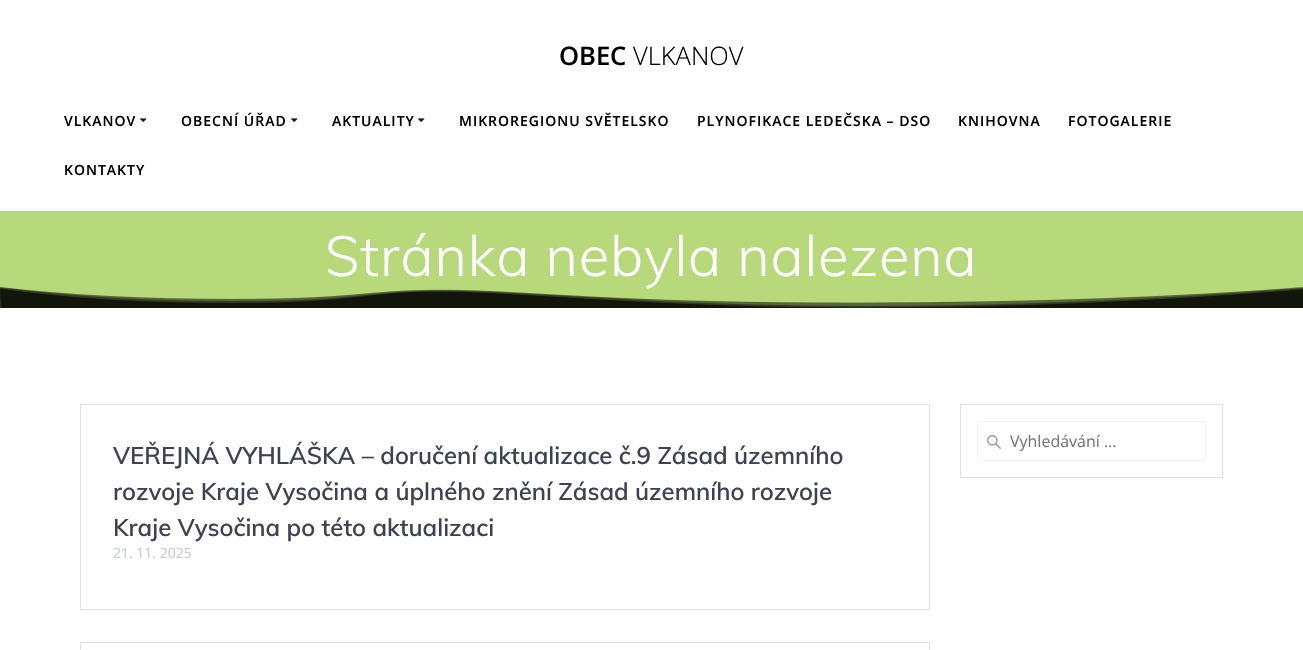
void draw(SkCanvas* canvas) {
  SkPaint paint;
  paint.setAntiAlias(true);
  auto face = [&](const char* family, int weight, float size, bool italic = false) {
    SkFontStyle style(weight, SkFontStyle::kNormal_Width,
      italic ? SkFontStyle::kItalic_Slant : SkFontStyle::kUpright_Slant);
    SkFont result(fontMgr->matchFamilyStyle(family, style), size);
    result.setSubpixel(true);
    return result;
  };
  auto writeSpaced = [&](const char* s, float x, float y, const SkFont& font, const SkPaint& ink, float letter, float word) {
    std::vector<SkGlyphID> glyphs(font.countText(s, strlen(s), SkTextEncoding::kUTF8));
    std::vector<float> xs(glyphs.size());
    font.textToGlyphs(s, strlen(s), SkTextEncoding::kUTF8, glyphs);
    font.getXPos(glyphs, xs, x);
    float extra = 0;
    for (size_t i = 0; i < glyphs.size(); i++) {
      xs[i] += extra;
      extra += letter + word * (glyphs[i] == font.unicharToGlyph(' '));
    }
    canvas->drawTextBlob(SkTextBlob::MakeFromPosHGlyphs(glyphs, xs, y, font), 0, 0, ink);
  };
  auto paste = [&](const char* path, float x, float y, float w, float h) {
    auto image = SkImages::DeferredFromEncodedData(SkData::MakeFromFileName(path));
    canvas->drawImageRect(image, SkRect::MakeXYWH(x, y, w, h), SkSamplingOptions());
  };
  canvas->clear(0xffb7d87b);
  paint.setColor(0xffffffff);
  canvas->drawRect(SkRect::MakeXYWH(0, 0, 1303, 211), paint);
  paste("img/1.png", 140, 118, 7, 4);
  paste("img/1.png", 291, 118, 7, 4);
  paste("img/1.png", 418, 118, 7, 4);
  paste("img/2.png", 0, 287, 1303, 21);
  canvas->drawRect(SkRect::MakeXYWH(0, 308, 1303, 342), paint);
  paint.setStroke(true);
  paint.setStrokeWidth(1);
  paint.setColor(0xffe0e1e1);
  canvas->drawRect(SkRect::MakeXYWH(80.5f, 404.5f, 849, 205), paint);
  canvas->drawRect(SkRect::MakeXYWH(80.5f, 642.5f, 849, 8), paint);
  canvas->drawRect(SkRect::MakeXYWH(960.5f, 404.5f, 262, 73), paint);
  paste("img/3.png", 987, 435, 14, 14);
  paint.setColor(0xfff1f1f1);
  canvas->drawRoundRect(SkRect::MakeXYWH(977.5f, 421.5f, 228, 39), 2.5f, 2.5f, paint);
  auto f0 = face("Open Sans", 600, 25.5f);
  paint.setStroke(false);
  paint.setColor(0xff000000);
  canvas->drawString("OBEC", 559, 65, f0, paint);
  auto f1 = face("Open Sans", 300, 25.5f);
  canvas->drawString("VLKANOV", 633, 65, f1, paint);
  auto f2 = face("Open Sans", 600, 14);
  {
    const struct { const char* s; float x, y; } items[] = {
      {"VLKANOV", 64, 126},
      {"OBECNÍ ÚŘAD", 181, 126},
      {"AKTUALITY", 332, 126},
      {"MIKROREGIONU SVĚTELSKO", 459, 126},
      {"PLYNOFIKACE LEDEČSKA – DSO", 697, 126},
      {"KNIHOVNA", 958, 126},
      {"FOTOGALERIE", 1068, 126},
      {"KONTAKTY", 64, 175},
    };
    for (auto [s, x, y] : items) {
      writeSpaced(s, x, y, f2, paint, 1, 0);
    }
  }
  auto f3 = face("Muli", 300, 56);
  paint.setColor(0xffffffff);
  writeSpaced("Stránka nebyla nalezena", 325, 276, f3, paint, 0.9f, 0);
  auto f4 = face("Muli", 600, 24);
  paint.setColor(0xff3c424f);
  {
    const struct { const char* s; float x, y; } items[] = {
      {"VEŘEJNÁ VYHLÁŠKA – doručení aktualizace č.9 Zásad územního", 113, 464},
      {"rozvoje Kraje Vysočina a úplného znění Zásad územního rozvoje", 113, 500},
      {"Kraje Vysočina po této aktualizaci", 113, 536},
    };
    for (auto [s, x, y] : items) {
      canvas->drawString(s, x, y, f4, paint);
    }
  }
  auto f5 = face("Open Sans", 400, 14);
  paint.setColor(0xffc1c9d2);
  canvas->drawString("21. 11. 2025", 113, 558, f5, paint);
  auto f6 = face("Open Sans", 400, 16);
  paint.setColor(0xff757575);
  canvas->drawString("Vyhledávání …", 1010, 447, f6, paint);
}
